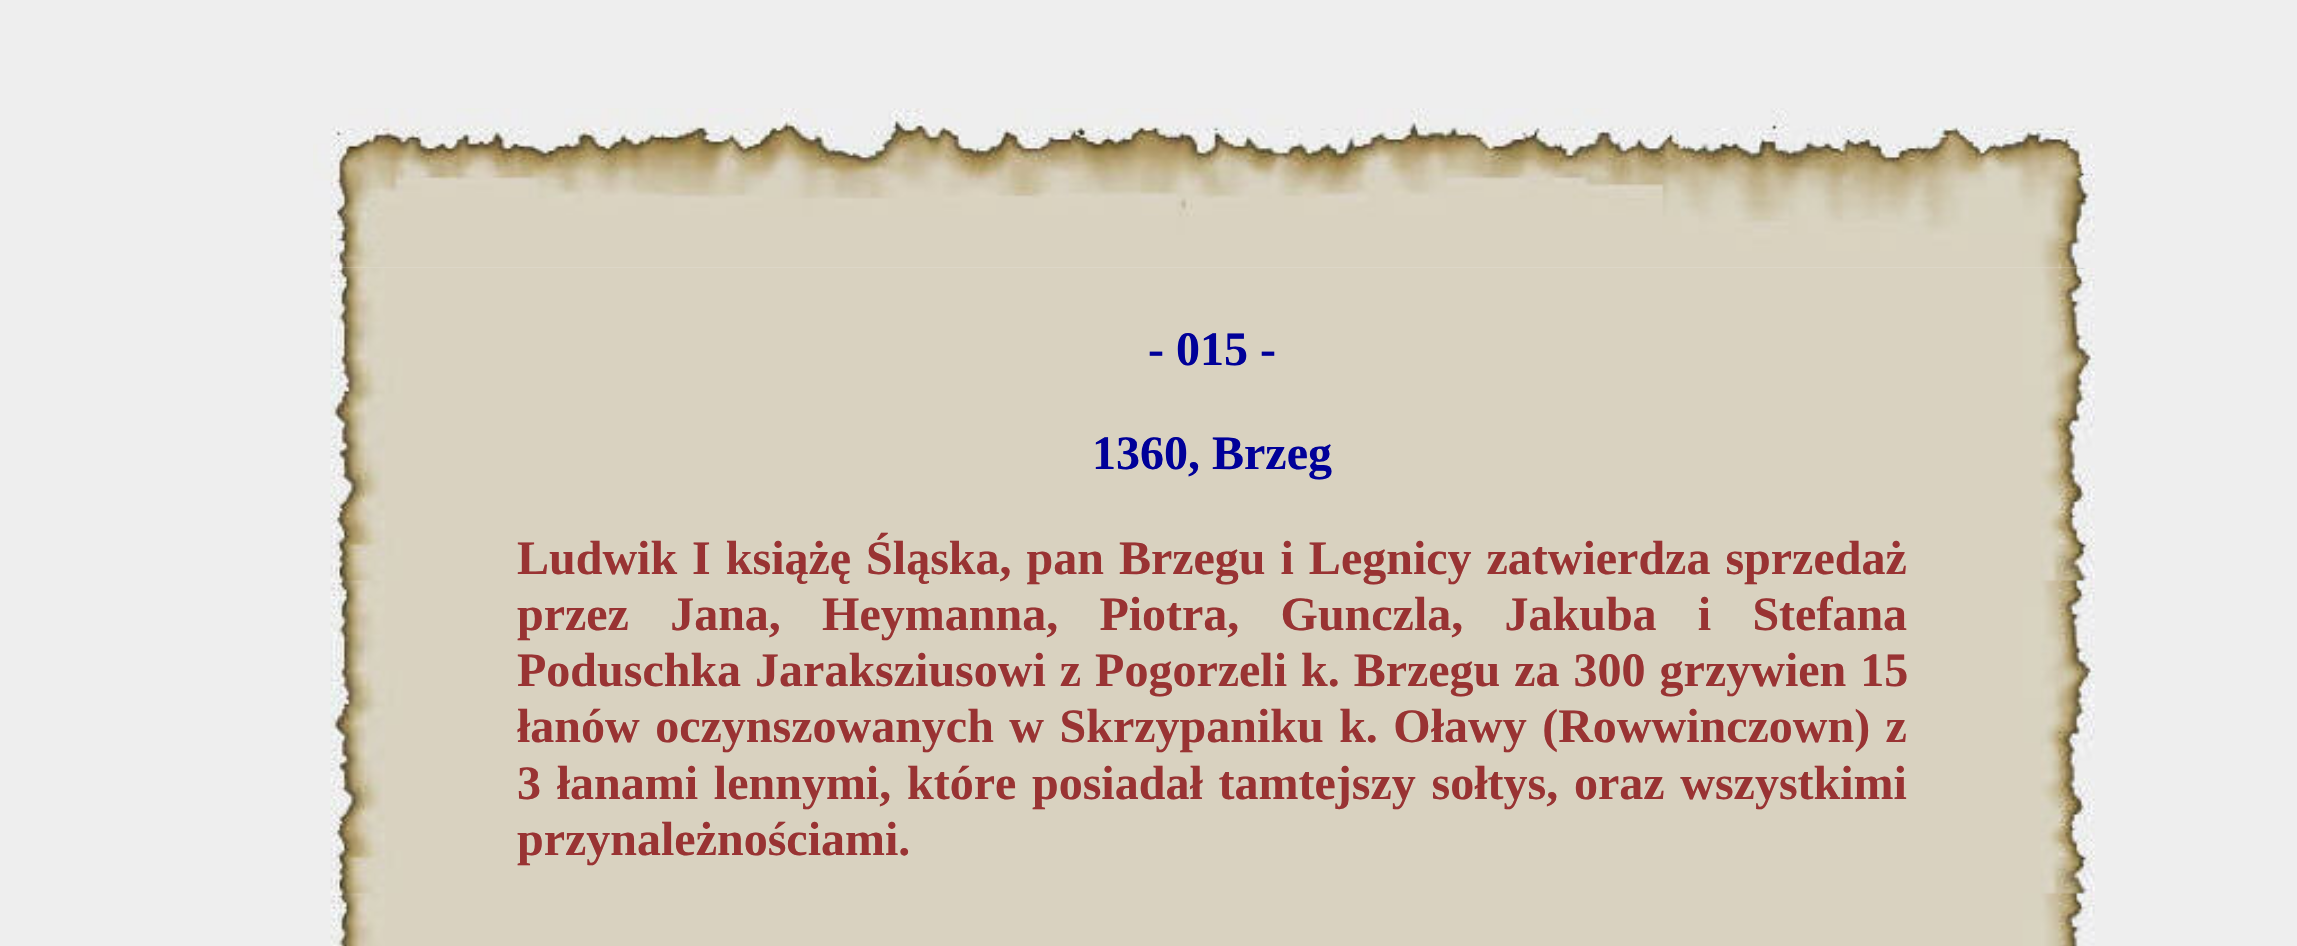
void draw(SkCanvas* canvas) {
  SkPaint paint;
  paint.setAntiAlias(true);
  auto face = [&](const char* family, int weight, float size, bool italic = false) {
    SkFontStyle style(weight, SkFontStyle::kNormal_Width,
      italic ? SkFontStyle::kItalic_Slant : SkFontStyle::kUpright_Slant);
    SkFont result(fontMgr->matchFamilyStyle(family, style), size);
    result.setSubpixel(true);
    return result;
  };
  auto writeSpaced = [&](const char* s, float x, float y, const SkFont& font, const SkPaint& ink, float letter, float word) {
    std::vector<SkGlyphID> glyphs(font.countText(s, strlen(s), SkTextEncoding::kUTF8));
    std::vector<float> xs(glyphs.size());
    font.textToGlyphs(s, strlen(s), SkTextEncoding::kUTF8, glyphs);
    font.getXPos(glyphs, xs, x);
    float extra = 0;
    for (size_t i = 0; i < glyphs.size(); i++) {
      xs[i] += extra;
      extra += letter + word * (glyphs[i] == font.unicharToGlyph(' '));
    }
    canvas->drawTextBlob(SkTextBlob::MakeFromPosHGlyphs(glyphs, xs, y, font), 0, 0, ink);
  };
  auto paste = [&](const char* path, float x, float y, float w, float h) {
    auto image = SkImages::DeferredFromEncodedData(SkData::MakeFromFileName(path));
    canvas->drawImageRect(image, SkRect::MakeXYWH(x, y, w, h), SkSamplingOptions());
  };
  canvas->clear(0xffeeeeee);
  paste("img/2.png", 330, 267, 1765, 679);
  paste("img/1.png", 313, 108, 1782, 160);
  auto f0 = face("Liberation Serif", 700, 48);
  paint.setColor(0xff000099);
  canvas->drawString("- 015 -", 1148, 365, f0, paint);
  canvas->drawString("1360, Brzeg", 1092, 469, f0, paint);
  paint.setColor(0xff993333);
  writeSpaced("Ludwik I książę Śląska, pan Brzegu i Legnicy zatwierdza sprzedaż", 517, 574, f0, paint, 0, 3);
  writeSpaced("przez Jana, Heymanna, Piotra, Gunczla, Jakuba i Stefana", 517, 630, f0, paint, 0, 29.25f);
  writeSpaced("Poduschka Jaraksziusowi z Pogorzeli k. Brzegu za 300 grzywien 15", 517, 686, f0, paint, 0, 2);
  writeSpaced("łanów oczynszowanych w Skrzypaniku k. Oławy (Rowwinczown) z", 517, 742, f0, paint, 0, 3.5f);
  writeSpaced("3 łanami lennymi, które posiadał tamtejszy sołtys, oraz wszystkimi", 517, 799, f0, paint, 0, 3.75f);
  canvas->drawString("przynależnościami.", 517, 855, f0, paint);
}
